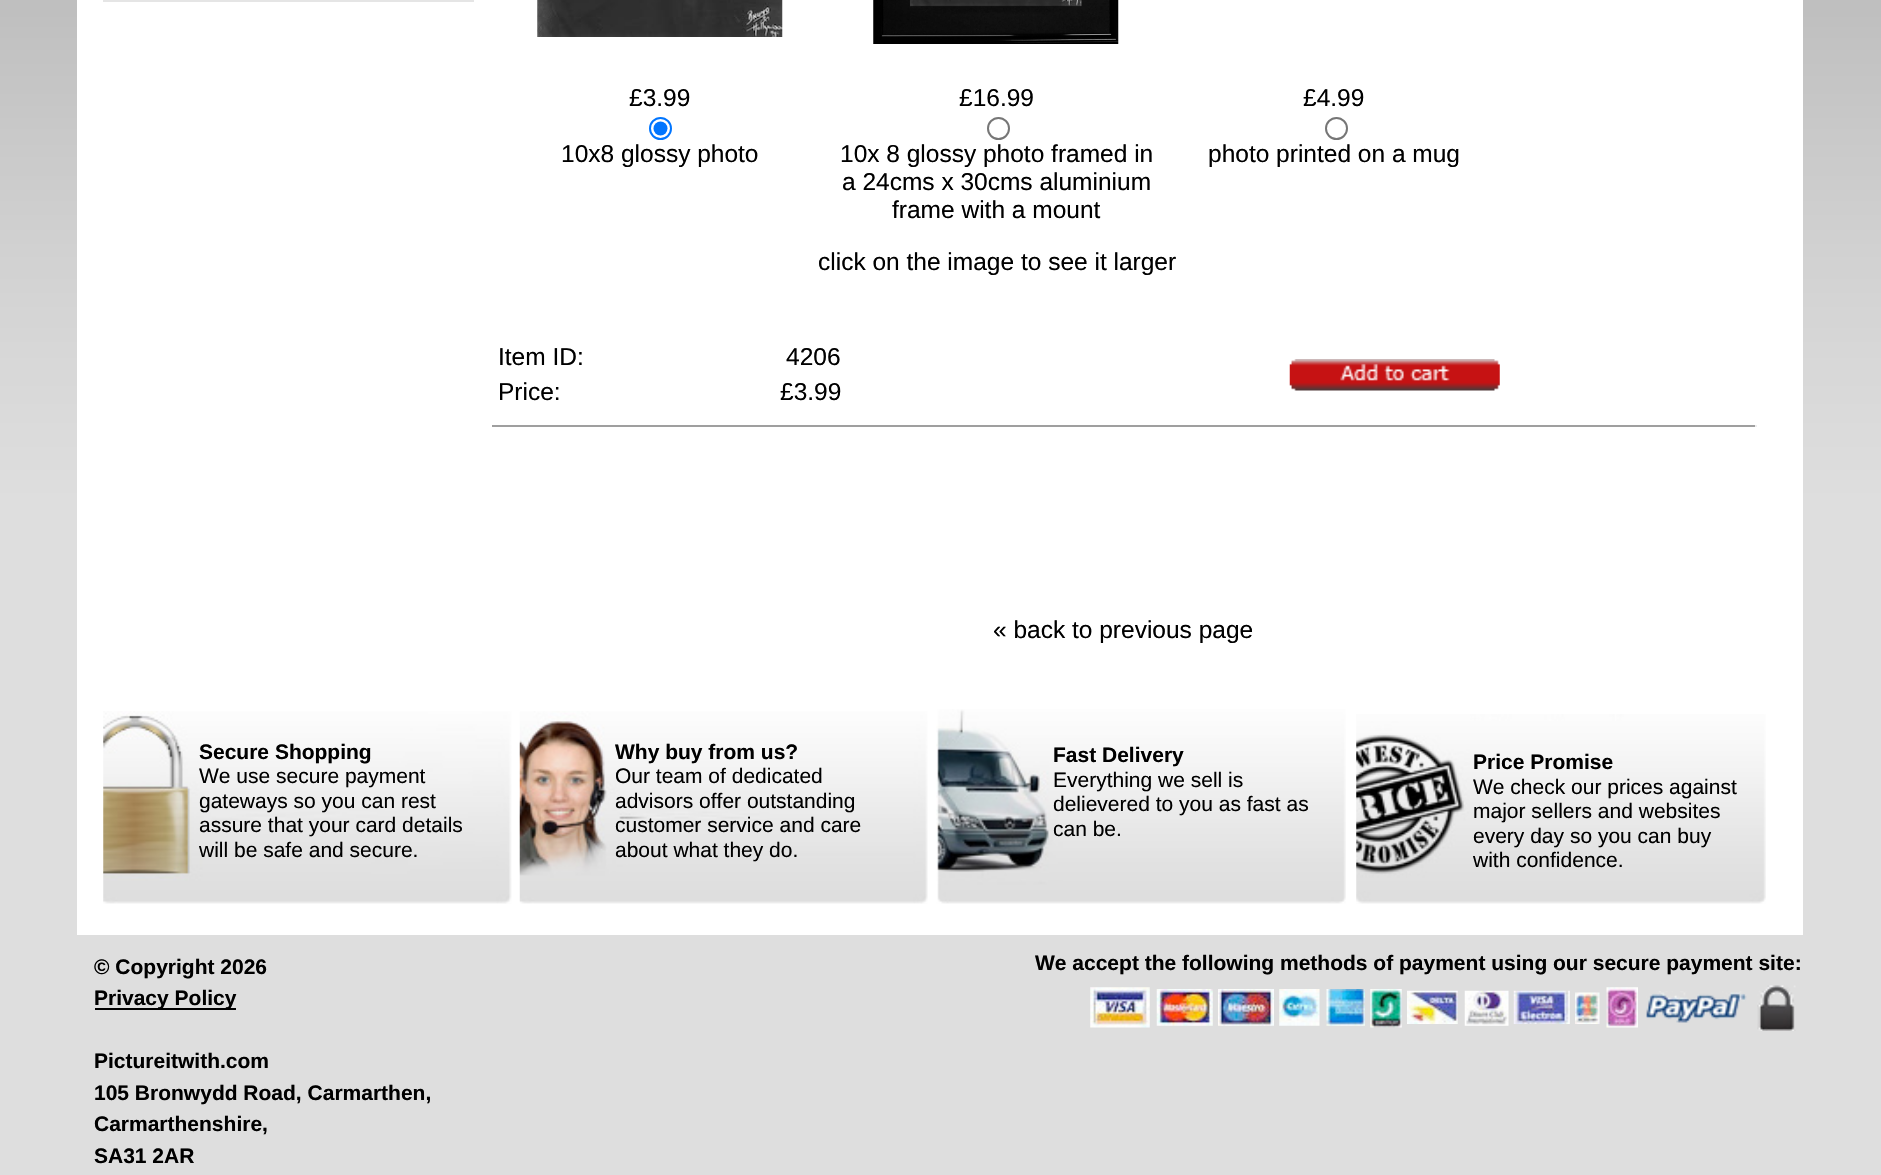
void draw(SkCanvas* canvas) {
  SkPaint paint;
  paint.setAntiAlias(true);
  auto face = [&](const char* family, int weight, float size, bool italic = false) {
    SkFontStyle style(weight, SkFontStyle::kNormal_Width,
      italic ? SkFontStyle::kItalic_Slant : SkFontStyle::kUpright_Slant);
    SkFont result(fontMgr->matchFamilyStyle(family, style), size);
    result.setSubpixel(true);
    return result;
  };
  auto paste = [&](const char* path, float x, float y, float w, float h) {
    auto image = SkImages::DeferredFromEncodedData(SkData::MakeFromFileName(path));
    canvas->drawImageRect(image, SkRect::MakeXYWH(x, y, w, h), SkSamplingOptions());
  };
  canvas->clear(0xffffffff);
  paste("img/1.png", 0, 0, 1881, 1175);
  paint.setColor(0xffffffff);
  canvas->drawRect(SkRect::MakeXYWH(77, 0, 1726, 935), paint);
  paint.setStroke(true);
  paint.setStrokeWidth(2);
  paint.setColor(0xffe5e5e5);
  canvas->drawRect(SkRect::MakeXYWH(104, -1, 369, 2), paint);
  paste("img/2.png", 537, 0, 246, 37);
  paint.setColor(0xff0075ff);
  canvas->drawCircle(660.5f, 128.5f, 10.5f, paint);
  paint.setStroke(false);
  canvas->drawCircle(660.5f, 128.5f, 7, paint);
  paste("img/3.png", 873, 0, 246, 44);
  paint.setStroke(true);
  paint.setColor(0xff767676);
  canvas->drawCircle(998.5f, 128.5f, 10.5f, paint);
  canvas->drawCircle(1336.5f, 128.5f, 10.5f, paint);
  paste("img/4.png", 1289, 359, 211, 32);
  paint.setStroke(false);
  paint.setColor(0xff9f9f9f);
  canvas->drawRect(SkRect::MakeXYWH(492, 425, 1265, 2), paint);
  paint.setColor(0xffeeeeee);
  canvas->drawRect(SkRect::MakeXYWH(1755, 425, 2, 2), paint);
  paste("img/5.png", 103, 711, 409, 193);
  paste("img/6.png", 519, 711, 409, 193);
  paste("img/7.png", 936, 709, 410, 195);
  paste("img/8.png", 1356, 714, 410, 190);
  paint.setColor(0xff000000);
  canvas->drawRect(SkRect::MakeXYWH(95, 1008, 141, 2), paint);
  paste("img/9.png", 1090, 987, 60, 41);
  paste("img/10.png", 1156, 989, 57, 37);
  paste("img/11.png", 1218, 989, 56, 37);
  paste("img/12.png", 1279, 989, 41, 37);
  paste("img/13.png", 1326, 989, 39, 37);
  paste("img/14.png", 1370, 989, 32, 39);
  paste("img/15.png", 1407, 990, 51, 34);
  paste("img/16.png", 1464, 990, 45, 36);
  paste("img/17.png", 1513, 990, 57, 34);
  paste("img/18.png", 1575, 992, 25, 32);
  paste("img/19.png", 1606, 987, 32, 41);
  paste("img/20.png", 1646, 991, 101, 32);
  paste("img/21.png", 1757, 985, 39, 46);
  auto f0 = face("Liberation Sans", 400, 24.5f);
  {
    const struct { const char* s; float x, y; } items[] = {
      {"£3.99", 629, 106},
      {"10x8 glossy photo", 561, 162},
      {"£16.99", 959, 106},
      {"10x 8 glossy photo framed in", 840, 162},
      {"a 24cms x 30cms aluminium", 842, 190},
      {"frame with a mount", 892, 218},
      {"£4.99", 1303, 106},
      {"photo printed on a mug", 1208, 162},
      {"click on the image to see it larger", 818, 270},
      {"Item ID:", 498, 365},
      {"4206", 786, 365},
      {"Price:", 498, 400},
      {"£3.99", 780, 400},
      {"« back to previous page", 993, 638},
    };
    for (auto [s, x, y] : items) {
      canvas->drawString(s, x, y, f0, paint);
    }
  }
  auto f1 = face("Liberation Sans", 700, 21);
  canvas->drawString("Secure Shopping", 199, 759, f1, paint);
  auto f2 = face("Liberation Sans", 400, 21);
  {
    const struct { const char* s; float x, y; } items[] = {
      {"We use secure payment", 199, 783},
      {"gateways so you can rest", 199, 808},
      {"assure that your card details", 199, 832},
      {"will be safe and secure.", 199, 857},
    };
    for (auto [s, x, y] : items) {
      canvas->drawString(s, x, y, f2, paint);
    }
  }
  canvas->drawString("Why buy from us?", 615, 759, f1, paint);
  {
    const struct { const char* s; float x, y; } items[] = {
      {"Our team of dedicated", 615, 783},
      {"advisors offer outstanding", 615, 808},
      {"customer service and care", 615, 832},
      {"about what they do.", 615, 857},
    };
    for (auto [s, x, y] : items) {
      canvas->drawString(s, x, y, f2, paint);
    }
  }
  canvas->drawString("Fast Delivery", 1053, 762, f1, paint);
  {
    const struct { const char* s; float x, y; } items[] = {
      {"Everything we sell is", 1053, 787},
      {"delievered to you as fast as", 1053, 811},
      {"can be.", 1053, 836},
    };
    for (auto [s, x, y] : items) {
      canvas->drawString(s, x, y, f2, paint);
    }
  }
  canvas->drawString("Price Promise", 1473, 769, f1, paint);
  {
    const struct { const char* s; float x, y; } items[] = {
      {"We check our prices against", 1473, 794},
      {"major sellers and websites", 1473, 818},
      {"every day so you can buy", 1473, 843},
      {"with confidence.", 1473, 867},
    };
    for (auto [s, x, y] : items) {
      canvas->drawString(s, x, y, f2, paint);
    }
  }
  {
    const struct { const char* s; float x, y; } items[] = {
      {"© Copyright 2026", 94, 974},
      {"Privacy Policy", 94, 1005},
      {"Pictureitwith.com", 94, 1068},
      {"105 Bronwydd Road, Carmarthen,", 94, 1100},
      {"Carmarthenshire,", 94, 1131},
      {"SA31 2AR", 94, 1163},
      {"We accept the following methods of payment using our secure payment site:", 1035, 970},
    };
    for (auto [s, x, y] : items) {
      canvas->drawString(s, x, y, f1, paint);
    }
  }
}
